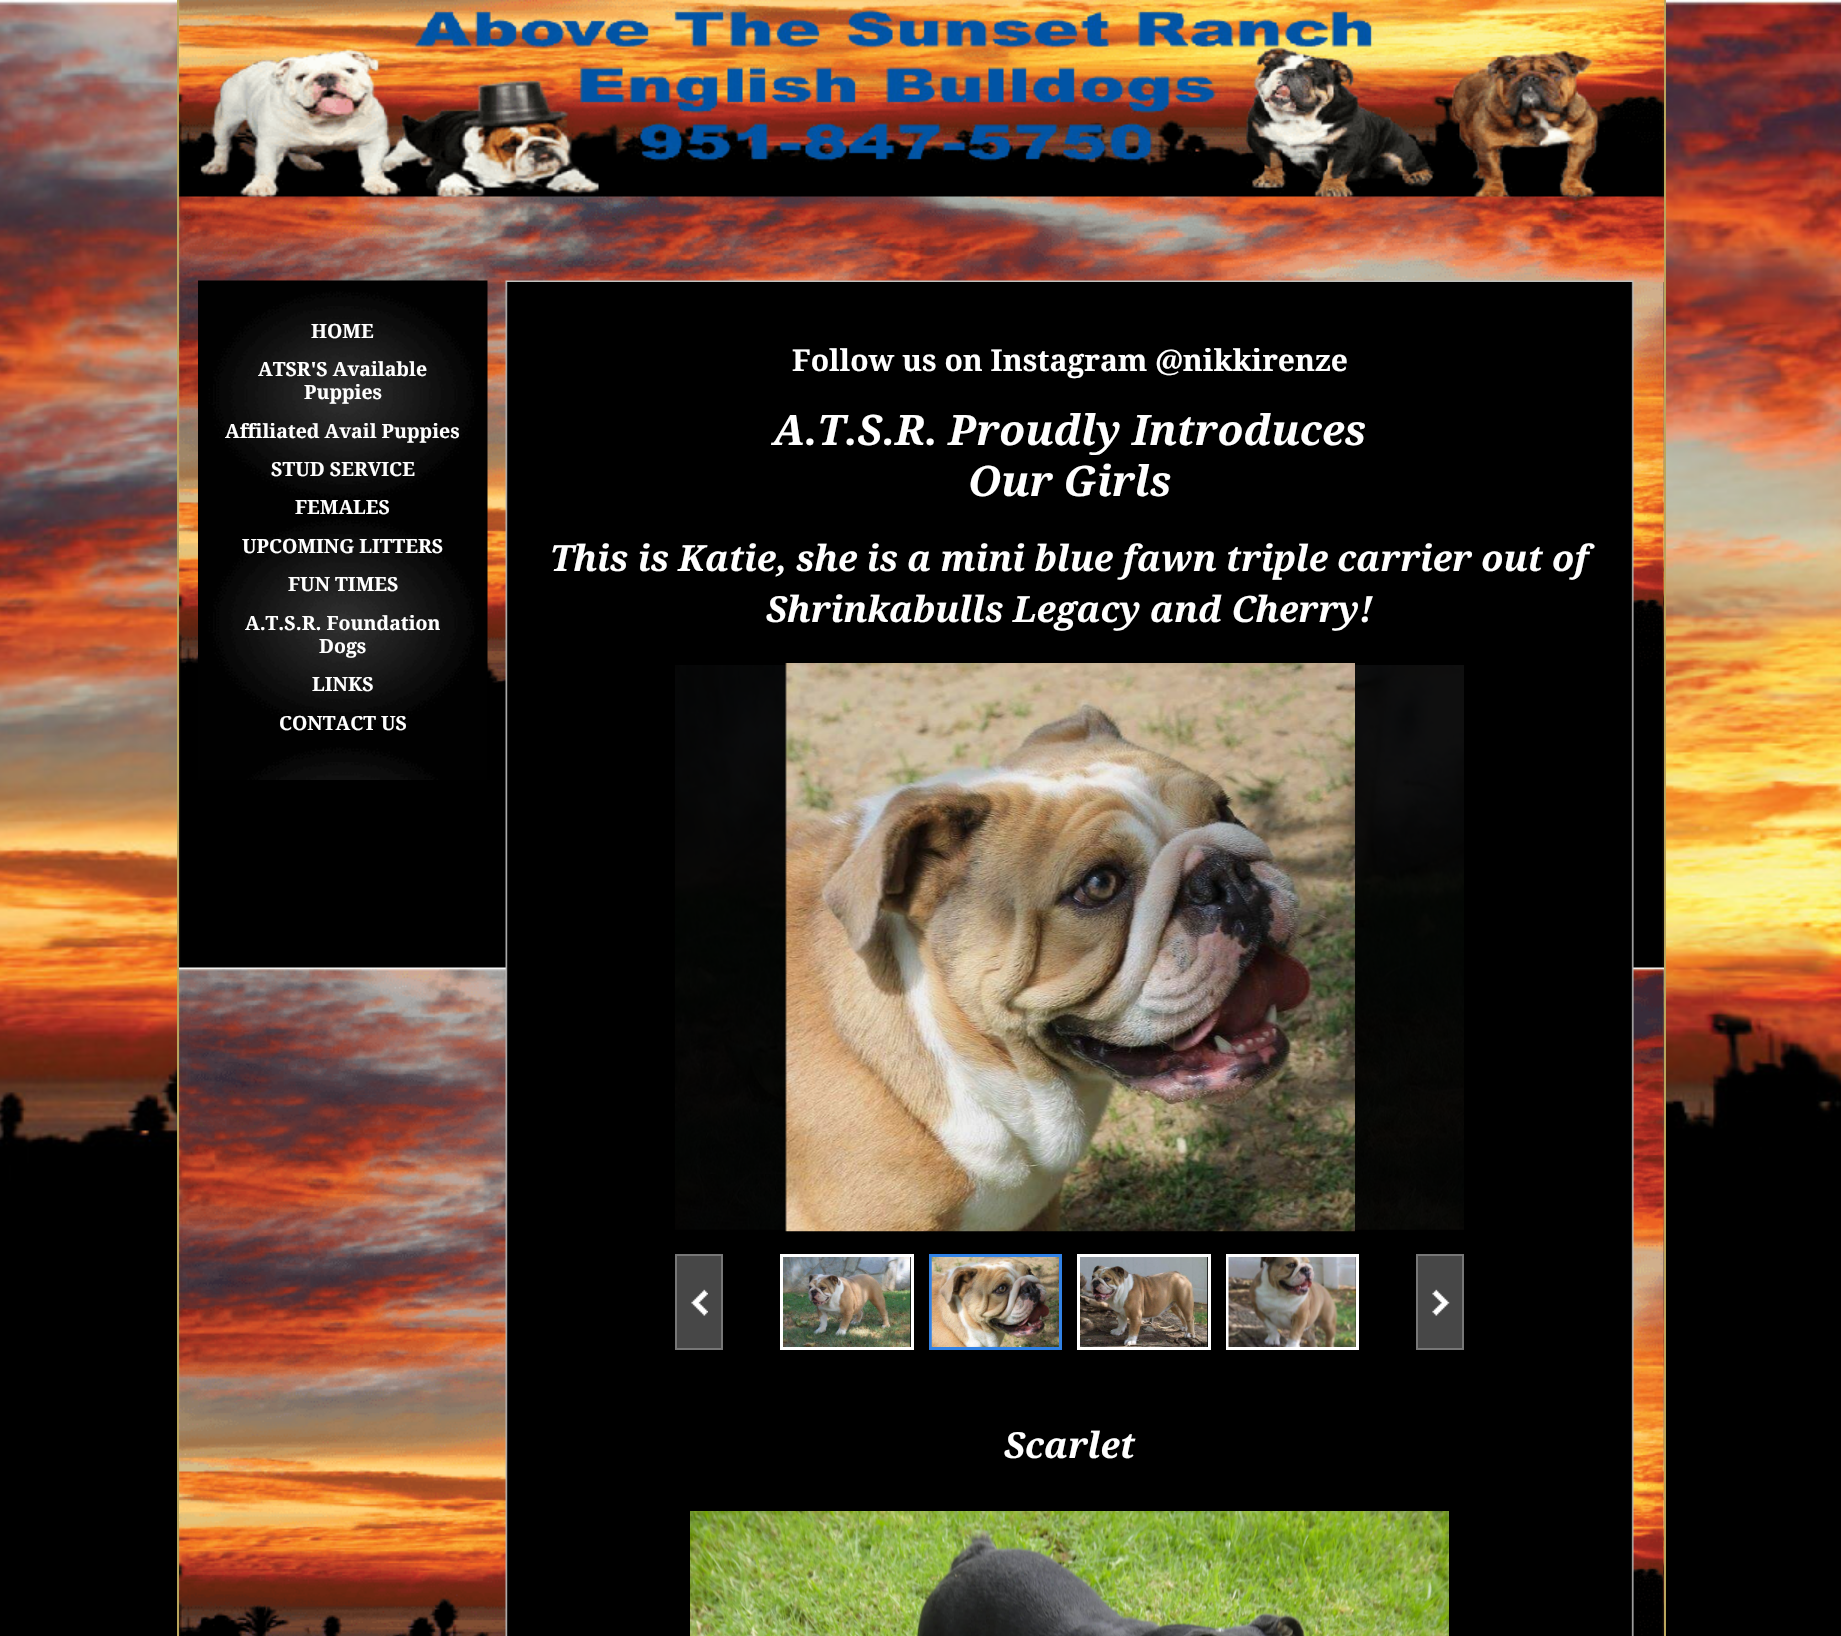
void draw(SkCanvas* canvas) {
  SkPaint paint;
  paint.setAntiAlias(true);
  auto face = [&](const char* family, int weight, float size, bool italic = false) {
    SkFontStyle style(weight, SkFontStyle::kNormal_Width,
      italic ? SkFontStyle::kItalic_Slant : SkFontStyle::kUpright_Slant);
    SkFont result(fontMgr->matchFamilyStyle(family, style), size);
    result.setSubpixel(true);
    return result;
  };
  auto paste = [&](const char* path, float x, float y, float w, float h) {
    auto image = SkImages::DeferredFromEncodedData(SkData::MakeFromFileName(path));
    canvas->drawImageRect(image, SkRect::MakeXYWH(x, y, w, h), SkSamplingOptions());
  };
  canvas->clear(0xff000000);
  paste("img/1.png", 0, 0, 1841, 1182);
  paste("img/2.png", 179, 282, 1485, 1354);
  paint.setColor(0xffb9a65c);
  canvas->drawRect(SkRect::MakeXYWH(1664, 0, 2, 1636), paint);
  canvas->drawRect(SkRect::MakeXYWH(177, 0, 2, 1636), paint);
  paste("img/3.png", 179, 0, 1485, 282);
  paste("img/4.png", 198, 280, 290, 500);
  paste("img/6.png", 675, 665, 789, 565);
  paste("img/5.png", 785, 663, 570, 569);
  paint.setColor(0xff474747);
  canvas->drawRect(SkRect::MakeXYWH(677, 1256, 44, 92), paint);
  paste("img/7.png", 691, 1289, 17, 27);
  paint.setStroke(true);
  paint.setStrokeWidth(2);
  paint.setColor(0xff777777);
  canvas->drawRect(SkRect::MakeXYWH(676, 1255, 46, 94), paint);
  paint.setStrokeWidth(3);
  paint.setColor(0xffffffff);
  canvas->drawRect(SkRect::MakeXYWH(781.5f, 1255.5f, 131, 93), paint);
  paste("img/8.png", 783, 1257, 128, 90);
  paint.setStroke(false);
  paint.setColor(0xff3182e6);
  canvas->drawRect(SkRect::MakeXYWH(929, 1254, 133, 96), paint);
  paste("img/9.png", 931, 1257, 128, 90);
  paint.setStroke(true);
  paint.setColor(0xffffffff);
  canvas->drawRect(SkRect::MakeXYWH(1078.5f, 1255.5f, 131, 93), paint);
  paste("img/10.png", 1080, 1257, 128, 90);
  canvas->drawRect(SkRect::MakeXYWH(1227.5f, 1255.5f, 130, 93), paint);
  paste("img/11.png", 1228, 1257, 128, 90);
  paint.setStroke(false);
  paint.setColor(0xff474747);
  canvas->drawRect(SkRect::MakeXYWH(1418, 1256, 44, 92), paint);
  paste("img/12.png", 1432, 1289, 18, 27);
  paint.setStroke(true);
  paint.setStrokeWidth(2);
  paint.setColor(0xff777777);
  canvas->drawRect(SkRect::MakeXYWH(1417, 1255, 46, 94), paint);
  paste("img/14.png", 698, 1511, 743, 125);
  paste("img/13.png", 690, 1511, 759, 125);
  auto f0 = face("Droid Serif", 700, 19.5f);
  paint.setStroke(false);
  paint.setColor(0xffffffff);
  {
    const struct { const char* s; float x, y; } items[] = {
      {"HOME", 311, 338},
      {"ATSR'S Available", 258, 376},
      {"Puppies", 304, 399},
      {"Affiliated Avail Puppies", 225, 438},
      {"STUD SERVICE", 271, 476},
      {"FEMALES", 295, 514},
      {"UPCOMING LITTERS", 242, 553},
      {"FUN TIMES", 288, 591},
      {"A.T.S.R. Foundation", 245, 630},
      {"Dogs", 319, 653},
      {"LINKS", 312, 691},
      {"CONTACT US", 279, 730},
    };
    for (auto [s, x, y] : items) {
      canvas->drawString(s, x, y, f0, paint);
    }
  }
  auto f1 = face("Droid Serif", 700, 30);
  canvas->drawString("Follow us on Instagram @nikkirenze", 792, 371, f1, paint);
  auto f2 = face("Droid Serif", 700, 42, true);
  canvas->drawString("A.T.S.R. Proudly Introduces", 773, 445, f2, paint);
  canvas->drawString("Our Girls", 968, 496, f2, paint);
  auto f3 = face("Droid Serif", 700, 36, true);
  {
    const struct { const char* s; float x, y; } items[] = {
      {"This is Katie, she is a mini blue fawn triple carrier out of", 550, 571},
      {"Shrinkabulls Legacy and Cherry!", 766, 622},
      {"Scarlet", 1004, 1458},
    };
    for (auto [s, x, y] : items) {
      canvas->drawString(s, x, y, f3, paint);
    }
  }
}
